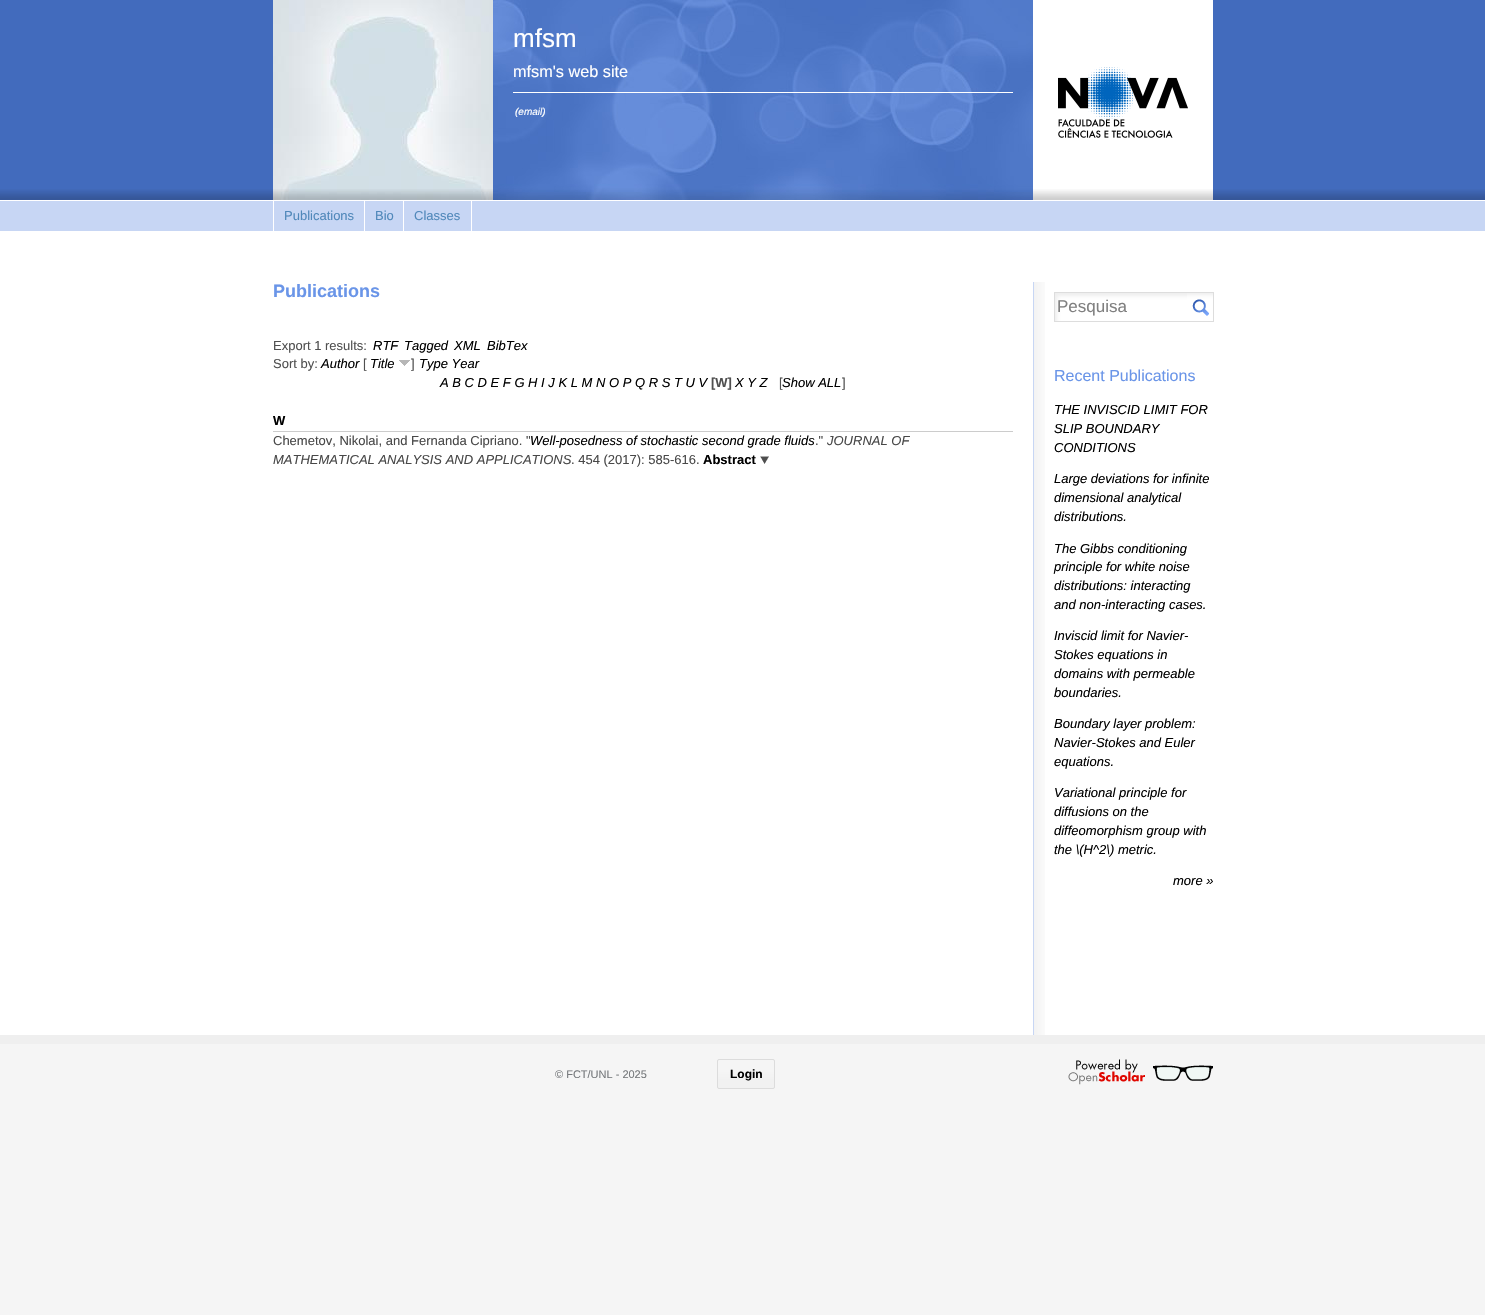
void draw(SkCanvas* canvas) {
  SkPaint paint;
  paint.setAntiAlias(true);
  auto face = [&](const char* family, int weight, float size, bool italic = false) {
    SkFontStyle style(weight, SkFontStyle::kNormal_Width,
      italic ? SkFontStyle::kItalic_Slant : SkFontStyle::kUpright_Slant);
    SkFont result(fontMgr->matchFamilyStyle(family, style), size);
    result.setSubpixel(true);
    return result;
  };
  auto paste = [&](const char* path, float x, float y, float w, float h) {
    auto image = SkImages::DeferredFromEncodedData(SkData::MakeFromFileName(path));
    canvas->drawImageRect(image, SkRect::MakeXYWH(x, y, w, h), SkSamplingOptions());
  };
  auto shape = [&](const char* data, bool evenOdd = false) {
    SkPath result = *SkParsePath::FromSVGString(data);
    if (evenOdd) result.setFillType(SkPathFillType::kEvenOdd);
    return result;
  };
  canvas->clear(0xfff5f5f5);
  paint.setColor(0xffffffff);
  canvas->drawRect(SkRect::MakeXYWH(0, 231, 1485, 804), paint);
  paint.setColor(0xff426bbd);
  canvas->drawRect(SkRect::MakeXYWH(0, 0, 1485, 200), paint);
  paste("img/1.png", 0, 189, 1485, 11);
  paste("img/2.png", 493, 0, 540, 200);
  paste("img/3.png", 273, 0, 220, 200);
  paste("img/4.png", 273, 189, 220, 11);
  paint.setColor(0xffffffff);
  canvas->drawRect(SkRect::MakeXYWH(513, 92, 500, 1), paint);
  canvas->drawRect(SkRect::MakeXYWH(1033, 0, 180, 200), paint);
  paste("img/5.png", 1033, 189, 180, 11);
  paste("img/6.png", 1058, 67, 130, 71);
  {
    const struct { float x, y, w, h; SkColor color; } items[] = {
      {0, 201, 1485, 30, 0xffc7d6f4},
      {0, 200, 1485, 1, 0xffffffff},
      {364, 201, 1, 30, 0xffffffff},
      {273, 201, 1, 30, 0xffffffff},
      {403, 201, 1, 30, 0xffffffff},
      {471, 201, 1, 30, 0xffffffff},
    };
    for (auto [x, y, w, h, color] : items) {
      paint.setColor(color);
      canvas->drawRect(SkRect::MakeXYWH(x, y, w, h), paint);
    }
  }
  paste("img/7.png", 399, 360, 11, 6);
  paint.setColor(0xffcccccc);
  canvas->drawRect(SkRect::MakeXYWH(273, 431, 740, 1), paint);
  paste("img/8.png", 760, 456, 9, 8);
  paste("img/9.png", 1034, 282, 11, 753);
  paint.setColor(0xffc7d6f4);
  canvas->drawRect(SkRect::MakeXYWH(1033, 282, 1, 753), paint);
  paste("img/10.png", 1187, 293, 26, 28);
  paint.setStroke(true);
  paint.setStrokeWidth(1);
  paint.setColor(0xffdddddd);
  canvas->drawRect(SkRect::MakeXYWH(1054.5f, 292.5f, 159, 29), paint);
  paste("img/11.png", 1055, 293, 132, 28);
  paste("img/12.png", 1192, 299, 17, 17);
  paint.setStroke(false);
  paint.setColor(0xffefefef);
  canvas->drawRect(SkRect::MakeXYWH(0, 1035, 1485, 9), paint);
  canvas->save();
  canvas->clipPath(shape("M719 1059H773C774 1059 775 1060 775 1061V1087C775 1088 774 1089 773 1089H719C718 1089 717 1088 717 1087V1061C717 1060 718 1059 719 1059Z"), true);
  {
    const SkColor colors[] = {0xfff5f5f5, 0xfff1f1f1};
    const float stops[] = {0, 1};
    const SkPoint ends[] = {{718, 1071}, {718, 1080}};
    paint.setShader(SkGradientShader::MakeLinear(ends, colors, stops, 2, SkTileMode::kClamp));
    paint.setAlpha(255);
  }
  canvas->drawRect(SkRect::MakeXYWH(717, 1060, 58, 28), paint);
  canvas->restore();
  paint.setStroke(true);
  paint.setShader(nullptr);
  paint.setColor(0xffdcdcdc);
  canvas->drawRoundRect(SkRect::MakeXYWH(717.5f, 1059.5f, 57, 29), 1.5f, 1.5f, paint);
  paste("img/13.png", 1068, 1059, 145, 26);
  auto f0 = face("Liberation Sans", 400, 26);
  paint.setStroke(false);
  paint.setColor(0xffffffff);
  canvas->drawString("mfsm", 513, 47, f0, paint);
  auto f1 = face("Liberation Sans", 400, 16.25f);
  canvas->drawString("mfsm's web site", 513, 77, f1, paint);
  auto f2 = face("Liberation Sans", 400, 10, true);
  canvas->drawString("(email)", 515, 115, f2, paint);
  auto f3 = face("Liberation Sans", 400, 13);
  paint.setColor(0xff5088ba);
  {
    const struct { const char* s; float x, y; } items[] = {
      {"Publications", 284, 220},
      {"Bio", 375, 220},
      {"Classes", 414, 220},
    };
    for (auto [s, x, y] : items) {
      canvas->drawString(s, x, y, f3, paint);
    }
  }
  auto f4 = face("Liberation Sans", 700, 18);
  paint.setColor(0xff6a95e8);
  canvas->drawString("Publications", 273, 297, f4, paint);
  paint.setColor(0xff505050);
  canvas->drawString("Export 1 results:", 273, 350, f3, paint);
  auto f5 = face("Liberation Sans", 400, 13, true);
  paint.setColor(0xff000000);
  {
    const struct { const char* s; float x, y; } items[] = {
      {"RTF", 373, 350},
      {"Tagged", 404, 350},
      {"XML", 454, 350},
      {"BibTex", 487, 350},
    };
    for (auto [s, x, y] : items) {
      canvas->drawString(s, x, y, f5, paint);
    }
  }
  paint.setColor(0xff505050);
  canvas->drawString("Sort by:", 273, 368, f3, paint);
  paint.setColor(0xff000000);
  canvas->drawString("Author", 321, 368, f5, paint);
  paint.setColor(0xff505050);
  canvas->drawString("[", 363, 368, f3, paint);
  paint.setColor(0xff000000);
  canvas->drawString("Title", 370, 368, f5, paint);
  paint.setColor(0xff505050);
  canvas->drawString("]", 411, 368, f3, paint);
  paint.setColor(0xff000000);
  canvas->drawString("Type Year", 419, 368, f5, paint);
  canvas->drawString("A B C D E F G H I J K L M N O P Q R S T U V", 440, 387, f5, paint);
  auto f6 = face("Liberation Sans", 700, 13);
  paint.setColor(0xff505050);
  canvas->drawString("[W]", 711, 387, f6, paint);
  paint.setColor(0xff000000);
  canvas->drawString("X Y Z", 735, 387, f5, paint);
  paint.setColor(0xff505050);
  canvas->drawString("[", 779, 387, f3, paint);
  paint.setColor(0xff000000);
  canvas->drawString("Show ALL", 782, 387, f5, paint);
  paint.setColor(0xff505050);
  canvas->drawString("]", 842, 387, f3, paint);
  paint.setColor(0xff000000);
  canvas->drawString("W", 273, 425, f6, paint);
  paint.setColor(0xff484848);
  canvas->drawString("Chemetov, Nikolai, and Fernanda Cipriano. \"", 273, 445, f3, paint);
  paint.setColor(0xff000000);
  canvas->drawString("Well-posedness of stochastic second grade fluids", 530, 445, f5, paint);
  paint.setColor(0xff484848);
  canvas->drawString(".\"", 815, 445, f3, paint);
  canvas->drawString("JOURNAL OF", 827, 445, f5, paint);
  canvas->drawString("MATHEMATICAL ANALYSIS AND APPLICATIONS", 273, 464, f5, paint);
  canvas->drawString(". 454 (2017): 585-616.", 571, 464, f3, paint);
  paint.setColor(0xff000000);
  canvas->drawString("Abstract", 703, 464, f6, paint);
  auto f7 = face("Liberation Sans", 400, 17);
  paint.setColor(0xff808080);
  canvas->drawString("Pesquisa", 1057, 312, f7, paint);
  auto f8 = face("Liberation Sans", 400, 16);
  paint.setColor(0xff6a95e8);
  canvas->drawString("Recent Publications", 1054, 381, f8, paint);
  paint.setColor(0xff000000);
  {
    const struct { const char* s; float x, y; } items[] = {
      {"THE INVISCID LIMIT FOR", 1054, 414},
      {"SLIP BOUNDARY", 1054, 433},
      {"CONDITIONS", 1054, 452},
      {"Large deviations for infinite", 1054, 483},
      {"dimensional analytical", 1054, 502},
      {"distributions.", 1054, 521},
      {"The Gibbs conditioning", 1054, 553},
      {"principle for white noise", 1054, 571},
      {"distributions: interacting", 1054, 590},
      {"and non-interacting cases.", 1054, 609},
      {"Inviscid limit for Navier-", 1054, 640},
      {"Stokes equations in", 1054, 659},
      {"domains with permeable", 1054, 678},
      {"boundaries.", 1054, 697},
      {"Boundary layer problem:", 1054, 728},
      {"Navier-Stokes and Euler", 1054, 747},
      {"equations.", 1054, 766},
      {"Variational principle for", 1054, 797},
      {"diffusions on the", 1054, 816},
      {"diffeomorphism group with", 1054, 835},
      {"the \\(H^2\\) metric.", 1054, 854},
      {"more »", 1173, 885},
    };
    for (auto [s, x, y] : items) {
      canvas->drawString(s, x, y, f5, paint);
    }
  }
  auto f9 = face("Liberation Sans", 400, 11);
  paint.setColor(0xff76797c);
  canvas->drawString("© FCT/UNL - 2025", 555, 1078, f9, paint);
  auto f10 = face("Liberation Sans", 700, 12);
  paint.setColor(0xff000000);
  canvas->drawString("Login", 730, 1078, f10, paint);
}
